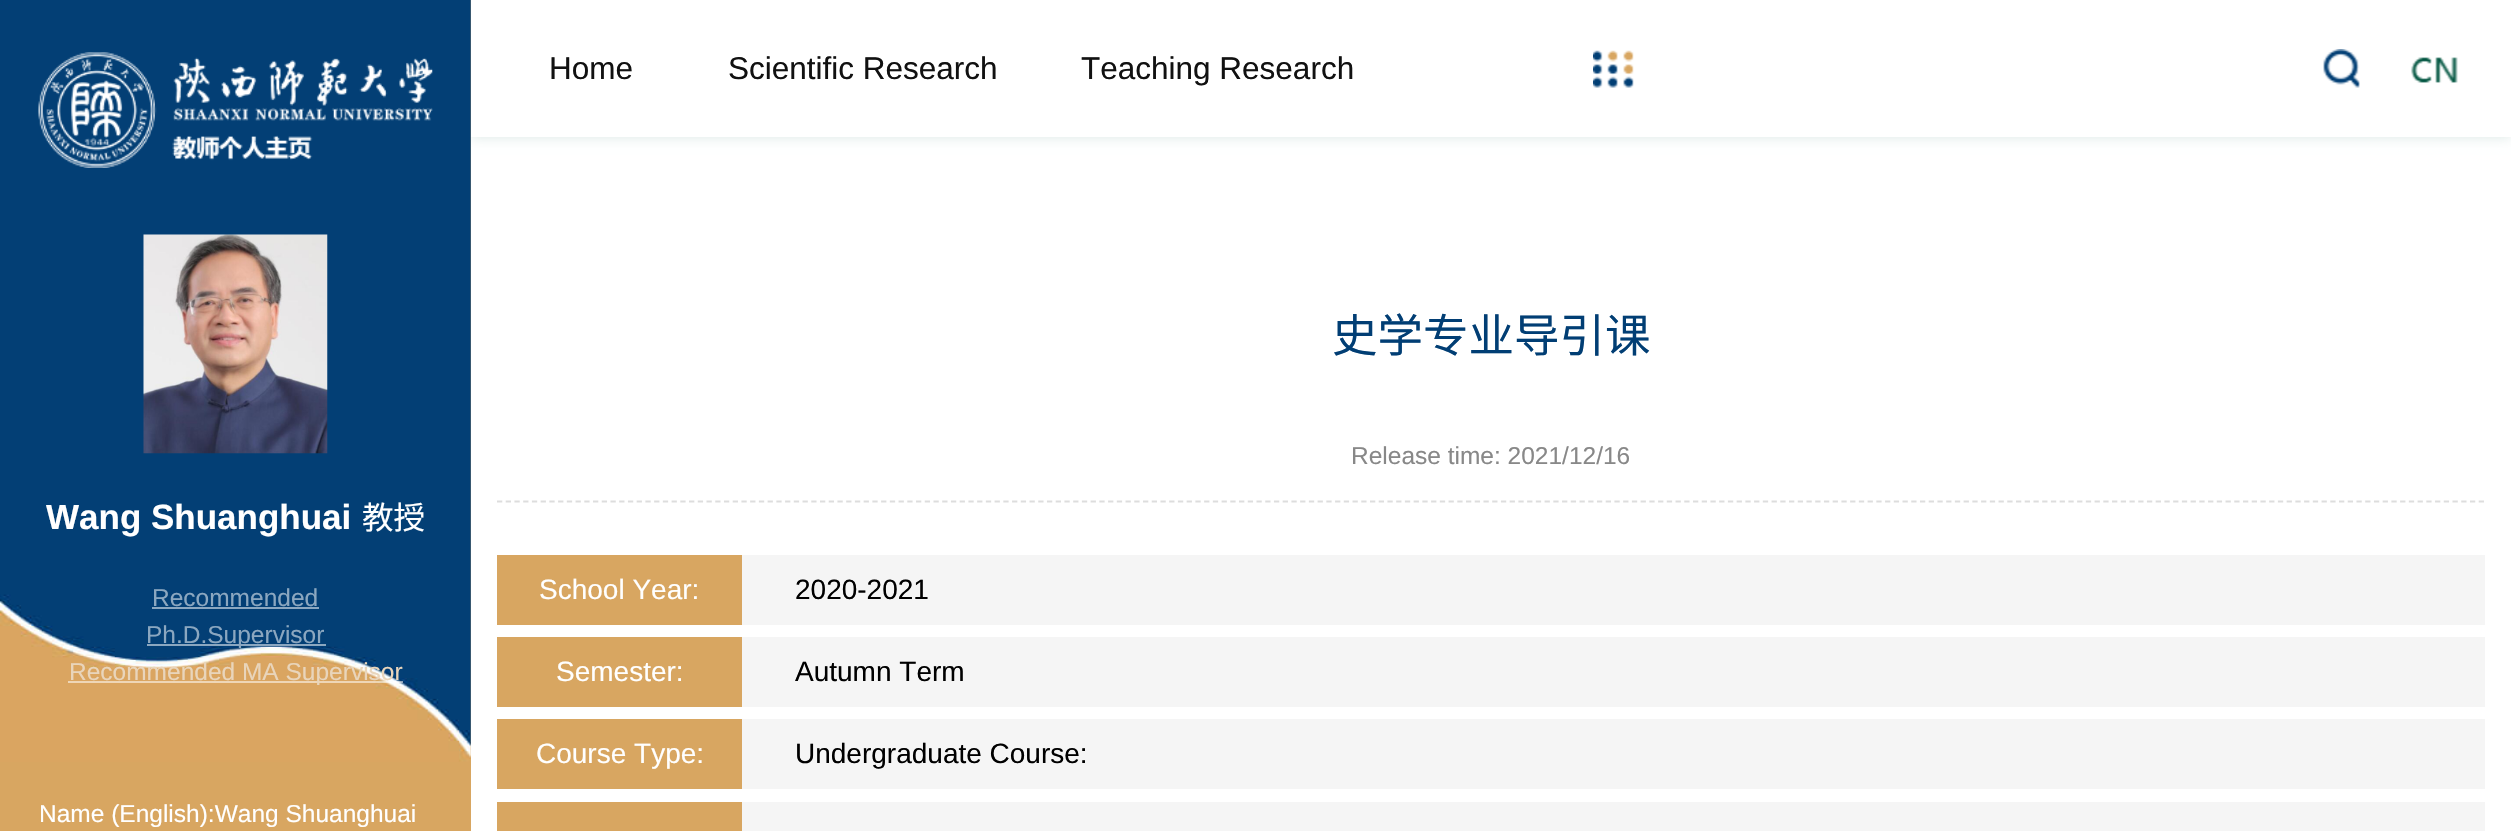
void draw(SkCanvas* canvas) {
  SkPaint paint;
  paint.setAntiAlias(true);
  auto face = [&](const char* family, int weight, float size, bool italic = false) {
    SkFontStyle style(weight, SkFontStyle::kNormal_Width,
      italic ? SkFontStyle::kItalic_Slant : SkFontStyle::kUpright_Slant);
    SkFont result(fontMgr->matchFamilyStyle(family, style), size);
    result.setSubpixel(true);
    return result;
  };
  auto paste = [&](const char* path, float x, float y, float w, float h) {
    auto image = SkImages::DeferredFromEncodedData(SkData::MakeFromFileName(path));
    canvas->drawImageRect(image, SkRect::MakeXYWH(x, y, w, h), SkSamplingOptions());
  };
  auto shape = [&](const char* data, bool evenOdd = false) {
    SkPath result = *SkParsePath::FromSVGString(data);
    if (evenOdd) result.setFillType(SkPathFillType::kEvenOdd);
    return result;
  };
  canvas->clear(0xffffffff);
  paint.setColor(0x24005540);
  paint.setMaskFilter(SkMaskFilter::MakeBlur(kNormal_SkBlurStyle, 6));
  canvas->drawRect(SkRect::MakeXYWH(471, 0, 2040, 137), paint);
  paint.setMaskFilter(nullptr);
  paint.setColor(0xffffffff);
  canvas->drawRect(SkRect::MakeXYWH(471, 0, 2040, 137), paint);
  paste("img/1.png", 1593, 50, 41, 38);
  paste("img/2.png", 2323, 49, 37, 39);
  paste("img/3.png", 2411, 57, 47, 26);
  paint.setColor(0xffd8a661);
  canvas->drawRect(SkRect::MakeXYWH(0, 0, 471, 831), paint);
  paste("img/4.png", 0, 0, 471, 762);
  paste("img/5.png", 38, 52, 395, 116);
  paste("img/6.png", 143, 234, 185, 220);
  {
    const struct { float x, y, w, h; SkColor color; } items[] = {
      {152, 607, 167, 2, 0xff8ba7c0},
      {147, 644, 179, 2, 0xff8ba7c0},
      {68, 681, 335, 2, 0x8affffff},
    };
    for (auto [x, y, w, h, color] : items) {
      paint.setColor(color);
      canvas->drawRect(SkRect::MakeXYWH(x, y, w, h), paint);
    }
  }
  paint.setStroke(true);
  paint.setStrokeWidth(1.8f);
  paint.setColor(0xffdddddd);
  paint.setPathEffect(SkDashPathEffect::Make({{5.25f, 3.48f}}, 0));
  canvas->drawPath(shape("M497 501.5H2485"), paint);
  paint.setPathEffect(nullptr);
  paint.setStroke(false);
  {
    const struct { float x, y, w, h; SkColor color; } items[] = {
      {497, 555, 245, 70, 0xffd8a661},
      {742, 555, 1743, 70, 0xfff5f5f5},
      {497, 637, 245, 70, 0xffd8a661},
      {742, 637, 1743, 70, 0xfff5f5f5},
      {497, 719, 245, 70, 0xffd8a661},
      {742, 719, 1743, 70, 0xfff5f5f5},
      {497, 802, 245, 29, 0xffd8a661},
      {742, 802, 1743, 29, 0xfff5f5f5},
    };
    for (auto [x, y, w, h, color] : items) {
      paint.setColor(color);
      canvas->drawRect(SkRect::MakeXYWH(x, y, w, h), paint);
    }
  }
  auto f0 = face("Liberation Sans", 400, 31.5f);
  paint.setColor(0xff111111);
  {
    const struct { const char* s; float x, y; } items[] = {
      {"Home", 549, 79},
      {"Scientific Research", 728, 79},
      {"Teaching Research", 1081, 79},
    };
    for (auto [s, x, y] : items) {
      canvas->drawString(s, x, y, f0, paint);
    }
  }
  auto f1 = face("Liberation Sans", 700, 35);
  paint.setColor(0xffffffff);
  canvas->drawString("Wang Shuanghuai", 46, 529, f1, paint);
  auto f2 = face("Noto Sans CJK SC", 400, 31.5f);
  canvas->drawString("教授", 362, 529, f2, paint);
  auto f3 = face("Liberation Sans", 400, 24.5f);
  paint.setColor(0xff8ba7c0);
  canvas->drawString("Recommended", 152, 606, f3, paint);
  canvas->drawString("Ph.D.Supervisor", 146, 643, f3, paint);
  paint.setColor(0xffe9d5bb);
  canvas->drawString("Recommended MA Supervisor", 69, 680, f3, paint);
  paint.setColor(0xffffffff);
  canvas->drawString("Name (English):Wang Shuanghuai", 39, 822, f3, paint);
  auto f4 = face("Noto Sans CJK SC", 400, 45.5f);
  paint.setColor(0xff013e74);
  canvas->drawString("史学专业导引课", 1332, 352, f4, paint);
  paint.setColor(0xff888888);
  canvas->drawString("Release time: 2021/12/16", 1351, 464, f3, paint);
  auto f5 = face("Liberation Sans", 400, 28);
  paint.setColor(0xffffffff);
  canvas->drawString("School Year:", 539, 599, f5, paint);
  paint.setColor(0xff000000);
  canvas->drawString("2020-2021", 795, 599, f5, paint);
  paint.setColor(0xffffffff);
  canvas->drawString("Semester:", 556, 681, f5, paint);
  paint.setColor(0xff000000);
  canvas->drawString("Autumn Term", 795, 681, f5, paint);
  paint.setColor(0xffffffff);
  canvas->drawString("Course Type:", 536, 763, f5, paint);
  paint.setColor(0xff000000);
  canvas->drawString("Undergraduate Course:", 795, 763, f5, paint);
}
